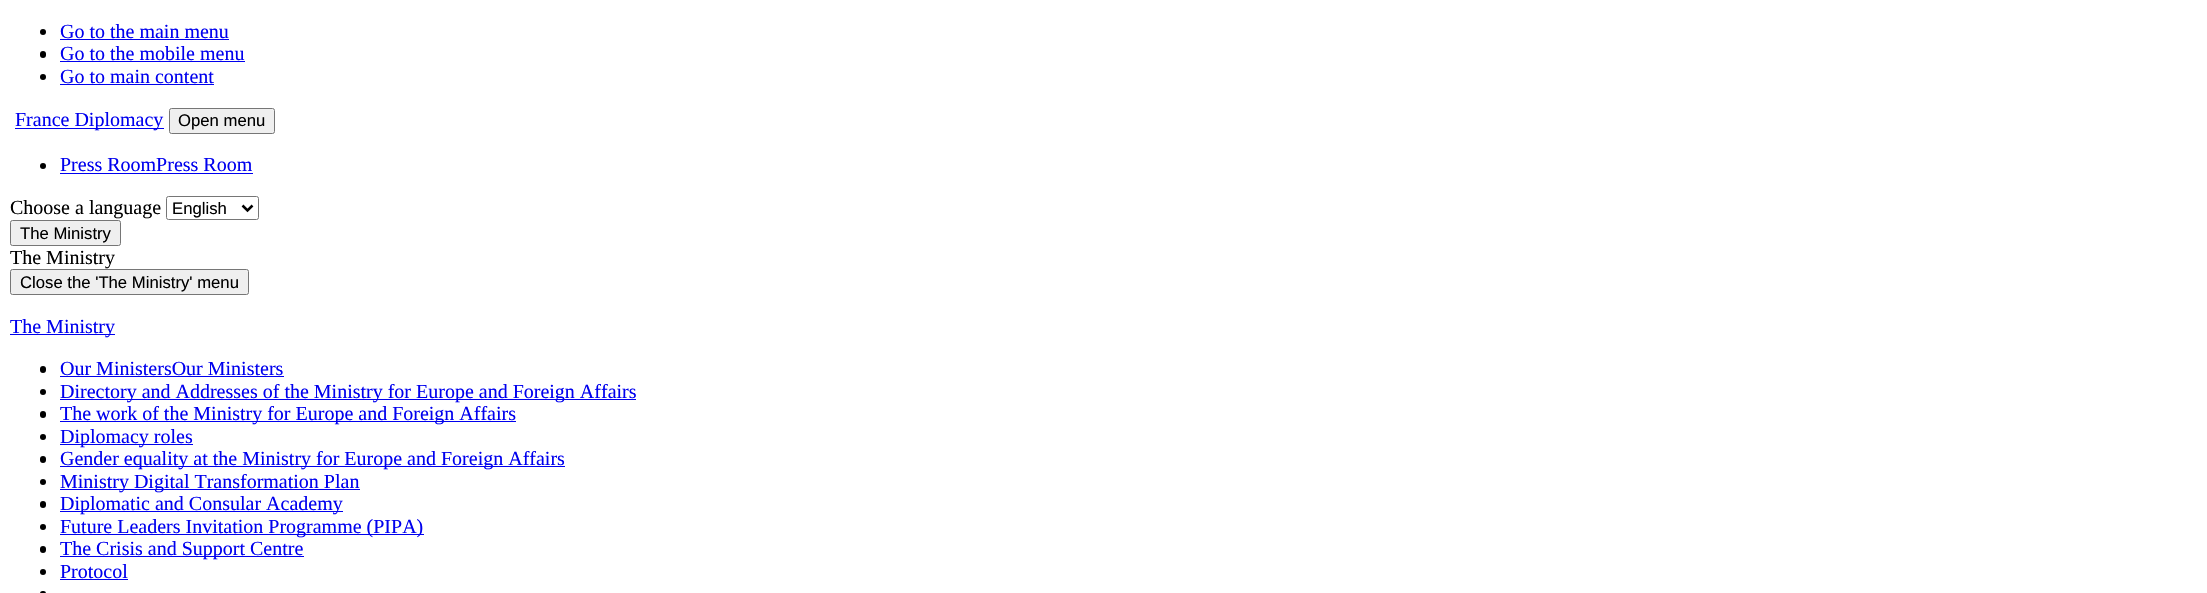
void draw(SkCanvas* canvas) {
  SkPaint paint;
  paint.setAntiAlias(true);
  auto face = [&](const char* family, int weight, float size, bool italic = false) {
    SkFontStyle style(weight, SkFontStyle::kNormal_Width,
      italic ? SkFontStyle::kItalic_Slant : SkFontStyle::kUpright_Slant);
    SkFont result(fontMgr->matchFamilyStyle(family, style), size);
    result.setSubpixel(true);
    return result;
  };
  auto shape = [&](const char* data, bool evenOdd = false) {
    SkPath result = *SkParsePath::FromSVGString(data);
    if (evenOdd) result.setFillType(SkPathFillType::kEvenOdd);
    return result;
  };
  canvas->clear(0xffffffff);
  paint.setColor(0xff000000);
  canvas->drawCircle(43, 32, 3, paint);
  paint.setColor(0xff0000ee);
  canvas->drawRect(SkRect::MakeXYWH(60, 39, 169, 1), paint);
  paint.setColor(0xff000000);
  canvas->drawRoundRect(SkRect::MakeXYWH(40, 51, 6, 7), 3, 3, paint);
  paint.setColor(0xff0000ee);
  canvas->drawRect(SkRect::MakeXYWH(60, 61, 185, 1), paint);
  paint.setColor(0xff000000);
  canvas->drawCircle(43, 77, 3, paint);
  paint.setColor(0xff0000ee);
  canvas->drawRect(SkRect::MakeXYWH(60, 84, 154, 1), paint);
  canvas->drawRect(SkRect::MakeXYWH(15, 128, 149, 1), paint);
  paint.setColor(0xffefefef);
  canvas->drawRoundRect(SkRect::MakeXYWH(169.5f, 108.5f, 105, 25), 2, 2, paint);
  paint.setStroke(true);
  paint.setStrokeWidth(1);
  paint.setColor(0xff767676);
  canvas->drawRoundRect(SkRect::MakeXYWH(169.5f, 108.5f, 105, 25), 2, 2, paint);
  paint.setStroke(false);
  paint.setColor(0xff000000);
  canvas->drawCircle(43, 166, 3, paint);
  paint.setColor(0xff0000ee);
  canvas->drawRect(SkRect::MakeXYWH(60, 173, 193, 1), paint);
  paint.setStroke(true);
  paint.setColor(0xff767676);
  canvas->drawRoundRect(SkRect::MakeXYWH(166.5f, 196.5f, 92, 23), 2, 2, paint);
  paint.setStrokeWidth(2.5f);
  paint.setColor(0xff000000);
  canvas->drawPath(shape("M242.5 205.5L247.5 210.5L252.5 205.5"), paint);
  paint.setStroke(false);
  paint.setColor(0xffefefef);
  canvas->drawRoundRect(SkRect::MakeXYWH(10.5f, 220.5f, 110, 25), 2, 2, paint);
  paint.setStroke(true);
  paint.setStrokeWidth(1);
  paint.setColor(0xff767676);
  canvas->drawRoundRect(SkRect::MakeXYWH(10.5f, 220.5f, 110, 25), 2, 2, paint);
  paint.setStroke(false);
  paint.setColor(0xffefefef);
  canvas->drawRoundRect(SkRect::MakeXYWH(10.5f, 269.5f, 238, 25), 2, 2, paint);
  paint.setStroke(true);
  paint.setColor(0xff767676);
  canvas->drawRoundRect(SkRect::MakeXYWH(10.5f, 269.5f, 238, 25), 2, 2, paint);
  paint.setStroke(false);
  paint.setColor(0xff0000ee);
  canvas->drawRect(SkRect::MakeXYWH(10, 334, 105, 1), paint);
  paint.setColor(0xff000000);
  canvas->drawRoundRect(SkRect::MakeXYWH(40, 366, 6, 7), 3, 3, paint);
  paint.setColor(0xff0000ee);
  canvas->drawRect(SkRect::MakeXYWH(60, 376, 224, 1), paint);
  paint.setColor(0xff000000);
  canvas->drawCircle(43, 392, 3, paint);
  paint.setColor(0xff0000ee);
  canvas->drawRect(SkRect::MakeXYWH(60, 399, 576, 1), paint);
  paint.setColor(0xff000000);
  canvas->drawRoundRect(SkRect::MakeXYWH(40, 411, 6, 7), 3, 3, paint);
  paint.setColor(0xff0000ee);
  canvas->drawRect(SkRect::MakeXYWH(60, 421, 456, 1), paint);
  paint.setColor(0xff000000);
  canvas->drawCircle(43, 437, 3, paint);
  paint.setColor(0xff0000ee);
  canvas->drawRect(SkRect::MakeXYWH(60, 444, 133, 1), paint);
  paint.setColor(0xff000000);
  canvas->drawRoundRect(SkRect::MakeXYWH(40, 456, 6, 7), 3, 3, paint);
  paint.setColor(0xff0000ee);
  canvas->drawRect(SkRect::MakeXYWH(60, 466, 505, 1), paint);
  paint.setColor(0xff000000);
  canvas->drawCircle(43, 482, 3, paint);
  paint.setColor(0xff0000ee);
  canvas->drawRect(SkRect::MakeXYWH(60, 489, 300, 1), paint);
  paint.setColor(0xff000000);
  canvas->drawRoundRect(SkRect::MakeXYWH(40, 501, 6, 7), 3, 3, paint);
  paint.setColor(0xff0000ee);
  canvas->drawRect(SkRect::MakeXYWH(60, 511, 283, 1), paint);
  paint.setColor(0xff000000);
  canvas->drawCircle(43, 527, 3, paint);
  paint.setColor(0xff0000ee);
  canvas->drawRect(SkRect::MakeXYWH(60, 534, 364, 1), paint);
  paint.setColor(0xff000000);
  canvas->drawRoundRect(SkRect::MakeXYWH(40, 546, 6, 7), 3, 3, paint);
  paint.setColor(0xff0000ee);
  canvas->drawRect(SkRect::MakeXYWH(60, 556, 244, 1), paint);
  paint.setColor(0xff000000);
  canvas->drawCircle(43, 572, 3, paint);
  paint.setColor(0xff0000ee);
  canvas->drawRect(SkRect::MakeXYWH(60, 579, 68, 1), paint);
  paint.setColor(0xff000000);
  canvas->drawRoundRect(SkRect::MakeXYWH(40, 591, 6, 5), 3, 3, paint);
  auto f0 = face("Liberation Serif", 400, 20);
  paint.setColor(0xff0000ee);
  {
    const struct { const char* s; float x, y; } items[] = {
      {"Go to the main menu", 60, 38},
      {"Go to the mobile menu", 60, 60},
      {"Go to main content", 60, 83},
      {"France Diplomacy", 15, 126},
    };
    for (auto [s, x, y] : items) {
      canvas->drawString(s, x, y, f0, paint);
    }
  }
  auto f1 = face("Liberation Sans", 400, 16.7f);
  paint.setColor(0xff000000);
  canvas->drawString("Open menu", 178, 126, f1, paint);
  paint.setColor(0xff0000ee);
  canvas->drawString("Press RoomPress Room", 60, 171, f0, paint);
  paint.setColor(0xff000000);
  canvas->drawString("Choose a language", 10, 214, f0, paint);
  canvas->drawString("English", 172, 214, f1, paint);
  canvas->drawString("The Ministry", 20, 239, f1, paint);
  canvas->drawString("The Ministry", 10, 264, f0, paint);
  canvas->drawString("Close the 'The Ministry' menu", 20, 288, f1, paint);
  paint.setColor(0xff0000ee);
  {
    const struct { const char* s; float x, y; } items[] = {
      {"The Ministry", 10, 333},
      {"Our MinistersOur Ministers", 60, 375},
      {"Directory and Addresses of the Ministry for Europe and Foreign Affairs", 60, 398},
      {"The work of the Ministry for Europe and Foreign Affairs", 60, 420},
      {"Diplomacy roles", 60, 443},
      {"Gender equality at the Ministry for Europe and Foreign Affairs", 60, 465},
      {"Ministry Digital Transformation Plan", 60, 488},
      {"Diplomatic and Consular Academy", 60, 510},
      {"Future Leaders Invitation Programme (PIPA)", 60, 533},
      {"The Crisis and Support Centre", 60, 555},
      {"Protocol", 60, 578},
    };
    for (auto [s, x, y] : items) {
      canvas->drawString(s, x, y, f0, paint);
    }
  }
}
